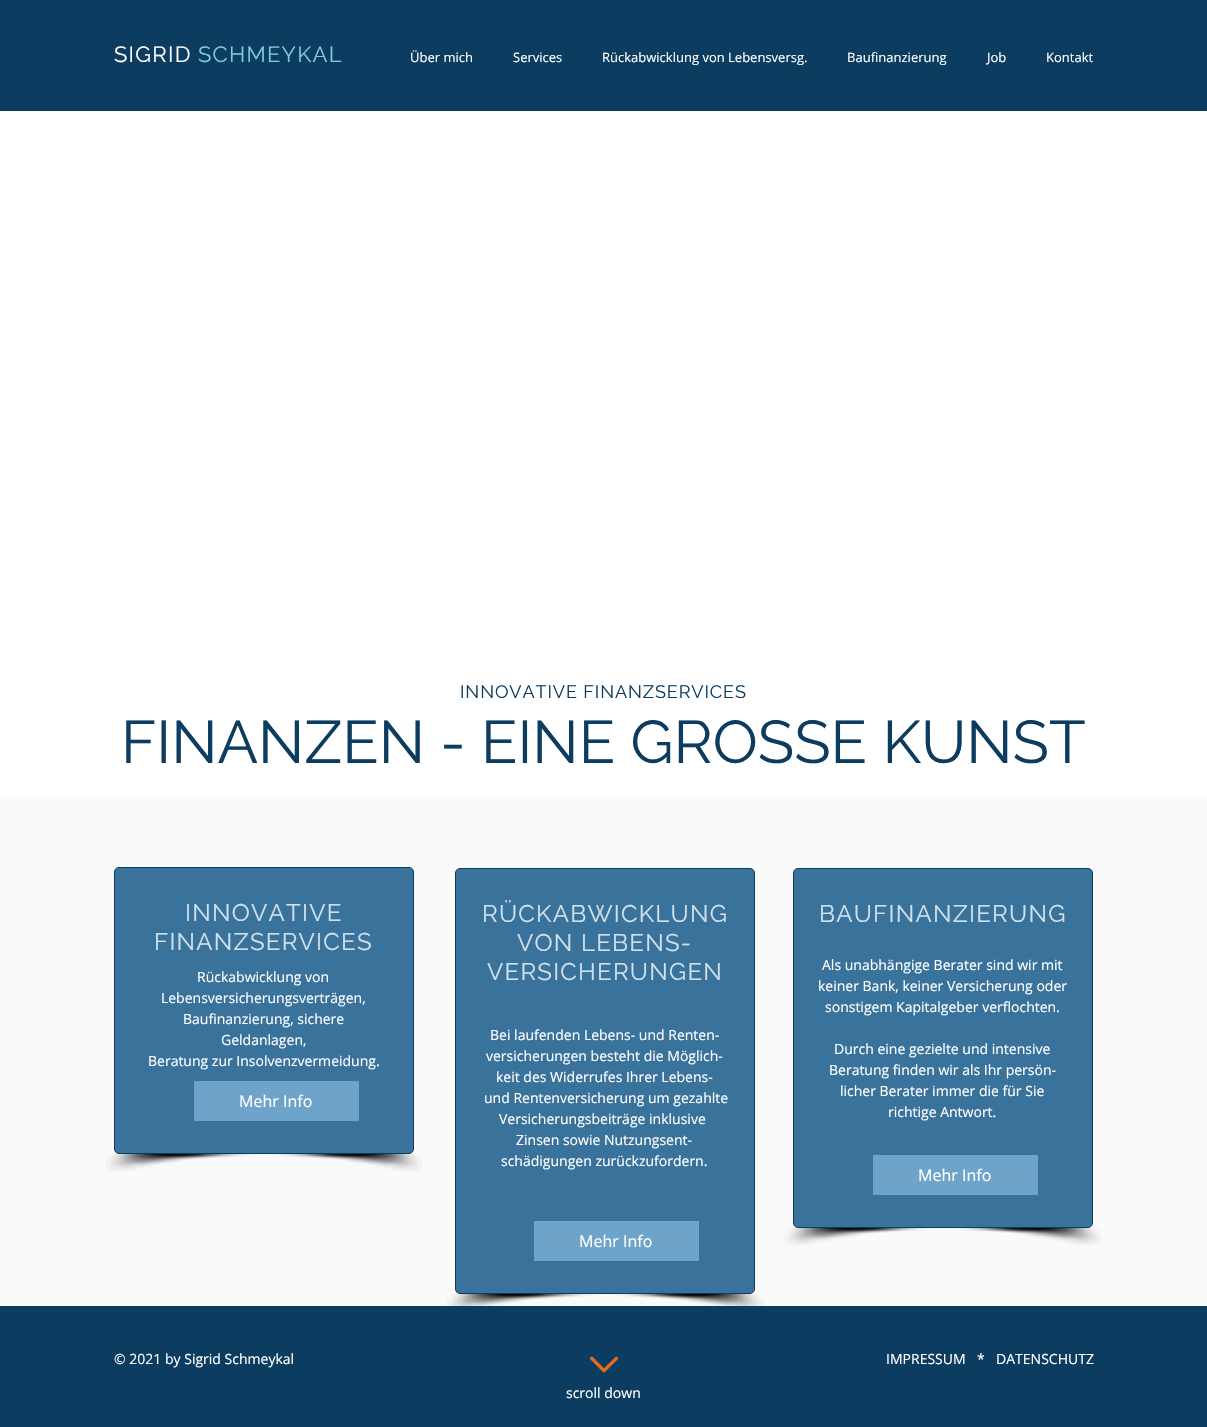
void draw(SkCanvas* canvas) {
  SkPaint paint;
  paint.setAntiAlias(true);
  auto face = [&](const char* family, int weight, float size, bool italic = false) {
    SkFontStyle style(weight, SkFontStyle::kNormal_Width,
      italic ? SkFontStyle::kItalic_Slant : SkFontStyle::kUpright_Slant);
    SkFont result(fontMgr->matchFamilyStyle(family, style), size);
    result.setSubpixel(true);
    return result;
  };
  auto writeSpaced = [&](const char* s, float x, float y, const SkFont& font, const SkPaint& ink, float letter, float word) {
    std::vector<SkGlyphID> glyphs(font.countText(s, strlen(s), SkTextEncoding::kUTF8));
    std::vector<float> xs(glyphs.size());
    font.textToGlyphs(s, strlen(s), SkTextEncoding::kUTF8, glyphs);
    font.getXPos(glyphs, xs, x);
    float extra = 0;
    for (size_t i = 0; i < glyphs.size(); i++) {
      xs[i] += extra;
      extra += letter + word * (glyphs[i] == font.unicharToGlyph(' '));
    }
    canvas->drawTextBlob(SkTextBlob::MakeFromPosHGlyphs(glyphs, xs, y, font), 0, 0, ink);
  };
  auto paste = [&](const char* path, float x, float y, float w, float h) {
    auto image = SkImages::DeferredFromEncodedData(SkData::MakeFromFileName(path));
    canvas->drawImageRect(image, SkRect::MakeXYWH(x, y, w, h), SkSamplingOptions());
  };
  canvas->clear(0xffffffff);
  paint.setColor(0xff0c3c60);
  canvas->drawRect(SkRect::MakeXYWH(0, 0, 1207, 111), paint);
  paint.setColor(0xfffafafa);
  canvas->drawRect(SkRect::MakeXYWH(0, 796, 1207, 510), paint);
  paint.setColor(0xff39729b);
  canvas->drawRoundRect(SkRect::MakeXYWH(114.5f, 867.5f, 299, 286), 4.5f, 4.5f, paint);
  paint.setStroke(true);
  paint.setStrokeWidth(1);
  paint.setColor(0xff0c3c60);
  canvas->drawRoundRect(SkRect::MakeXYWH(114.5f, 867.5f, 299, 286), 4.5f, 4.5f, paint);
  paint.setStroke(false);
  paint.setColor(0xff6ea4ca);
  canvas->drawRect(SkRect::MakeXYWH(194, 1081, 165, 40), paint);
  paste("img/1.png", 105, 1154, 154, 18);
  paste("img/2.png", 269, 1154, 154, 18);
  paint.setColor(0xff39729b);
  canvas->drawRoundRect(SkRect::MakeXYWH(455.5f, 868.5f, 299, 425), 4.5f, 4.5f, paint);
  paint.setStroke(true);
  paint.setColor(0xff0c3c60);
  canvas->drawRoundRect(SkRect::MakeXYWH(455.5f, 868.5f, 299, 425), 4.5f, 4.5f, paint);
  paint.setStroke(false);
  paint.setColor(0xff6ea4ca);
  canvas->drawRect(SkRect::MakeXYWH(534, 1221, 165, 40), paint);
  paste("img/3.png", 446, 1294, 154, 12);
  paste("img/4.png", 610, 1294, 154, 12);
  paint.setColor(0xff39729b);
  canvas->drawRoundRect(SkRect::MakeXYWH(793.5f, 868.5f, 299, 359), 4.5f, 4.5f, paint);
  paint.setStroke(true);
  paint.setColor(0xff0c3c60);
  canvas->drawRoundRect(SkRect::MakeXYWH(793.5f, 868.5f, 299, 359), 4.5f, 4.5f, paint);
  paint.setStroke(false);
  paint.setColor(0xff6ea4ca);
  canvas->drawRect(SkRect::MakeXYWH(873, 1155, 165, 40), paint);
  paste("img/1.png", 784, 1228, 154, 18);
  paste("img/2.png", 948, 1228, 154, 18);
  paint.setColor(0xff0c3c60);
  canvas->drawRect(SkRect::MakeXYWH(0, 1306, 1207, 121), paint);
  paste("img/5.png", 590, 1356, 28, 17);
  auto f0 = face("Raleway", 400, 22);
  paint.setColor(0xffffffff);
  writeSpaced("SIGRID", 114, 62, f0, paint, 1.25f, 0);
  paint.setColor(0xff7dcada);
  writeSpaced("SCHMEYKAL", 198, 62, f0, paint, 1.25f, 0);
  auto f1 = face("Open Sans", 400, 13);
  paint.setColor(0xffffffff);
  {
    const struct { const char* s; float x, y; } items[] = {
      {"Über mich", 410, 62},
      {"Services", 513, 62},
      {"Rückabwicklung von Lebensversg.", 602, 62},
      {"Baufinanzierung", 847, 62},
      {"Job", 987, 62},
      {"Kontakt", 1046, 62},
    };
    for (auto [s, x, y] : items) {
      canvas->drawString(s, x, y, f1, paint);
    }
  }
  auto f2 = face("Raleway", 400, 18);
  paint.setColor(0xff0c3c60);
  writeSpaced("INNOVATIVE FINANZSERVICES", 460, 698, f2, paint, 0.9f, 0);
  auto f3 = face("Raleway", 400, 60);
  canvas->drawString("FINANZEN - EINE GROSSE KUNST", 121, 763, f3, paint);
  auto f4 = face("Raleway", 400, 24);
  paint.setColor(0xffd1e0eb);
  writeSpaced("INNOVATIVE", 185, 921, f4, paint, 1.25f, 0);
  writeSpaced("FINANZSERVICES", 154, 950, f4, paint, 1.25f, 0);
  auto f5 = face("Open Sans", 400, 14);
  paint.setColor(0xffffffff);
  {
    const struct { const char* s; float x, y; } items[] = {
      {"Rückabwicklung von", 197, 982},
      {"Lebensversicherungsverträgen,", 161, 1003},
      {"Baufinanzierung, sichere", 183, 1024},
      {"Geldanlagen,", 221, 1045},
      {"Beratung zur Insolvenzvermeidung.", 148, 1066},
    };
    for (auto [s, x, y] : items) {
      canvas->drawString(s, x, y, f5, paint);
    }
  }
  auto f6 = face("Open Sans", 400, 16);
  canvas->drawString("Mehr Info", 239, 1107, f6, paint);
  paint.setColor(0xffd1e0eb);
  {
    const struct { const char* s; float x, y; } items[] = {
      {"RÜCKABWICKLUNG", 482, 922},
      {"VON LEBENS-", 517, 951},
      {"VERSICHERUNGEN", 487, 980},
    };
    for (auto [s, x, y] : items) {
      writeSpaced(s, x, y, f4, paint, 1.25f, 0);
    }
  }
  paint.setColor(0xffffffff);
  {
    const struct { const char* s; float x, y; } items[] = {
      {"Bei laufenden Lebens- und Renten-", 490, 1040},
      {"versicherungen besteht die Möglich-", 486, 1061},
      {"keit des Widerrufes Ihrer Lebens-", 496, 1082},
      {"und Rentenversicherung um gezahlte", 484, 1103},
      {"Versicherungsbeiträge inklusive", 499, 1124},
      {"Zinsen sowie Nutzungsent-", 516, 1145},
      {"schädigungen zurückzufordern.", 501, 1166},
    };
    for (auto [s, x, y] : items) {
      canvas->drawString(s, x, y, f5, paint);
    }
  }
  canvas->drawString("Mehr Info", 579, 1247, f6, paint);
  paint.setColor(0xffd1e0eb);
  writeSpaced("BAUFINANZIERUNG", 819, 922, f4, paint, 1.25f, 0);
  paint.setColor(0xffffffff);
  {
    const struct { const char* s; float x, y; } items[] = {
      {"Als unabhängige Berater sind wir mit", 822, 970},
      {"keiner Bank, keiner Versicherung oder", 818, 991},
      {"sonstigem Kapitalgeber verflochten.", 825, 1012},
      {"Durch eine gezielte und intensive", 834, 1054},
      {"Beratung finden wir als Ihr persön-", 829, 1075},
      {"licher Berater immer die für Sie", 840, 1096},
      {"richtige Antwort.", 888, 1117},
    };
    for (auto [s, x, y] : items) {
      canvas->drawString(s, x, y, f5, paint);
    }
  }
  canvas->drawString("Mehr Info", 918, 1181, f6, paint);
  {
    const struct { const char* s; float x, y; } items[] = {
      {"© 2021 by Sigrid Schmeykal", 114, 1364},
      {"IMPRESSUM", 886, 1364},
      {"*", 977, 1364},
      {"DATENSCHUTZ", 996, 1364},
      {"scroll down", 566, 1398},
    };
    for (auto [s, x, y] : items) {
      canvas->drawString(s, x, y, f5, paint);
    }
  }
}
